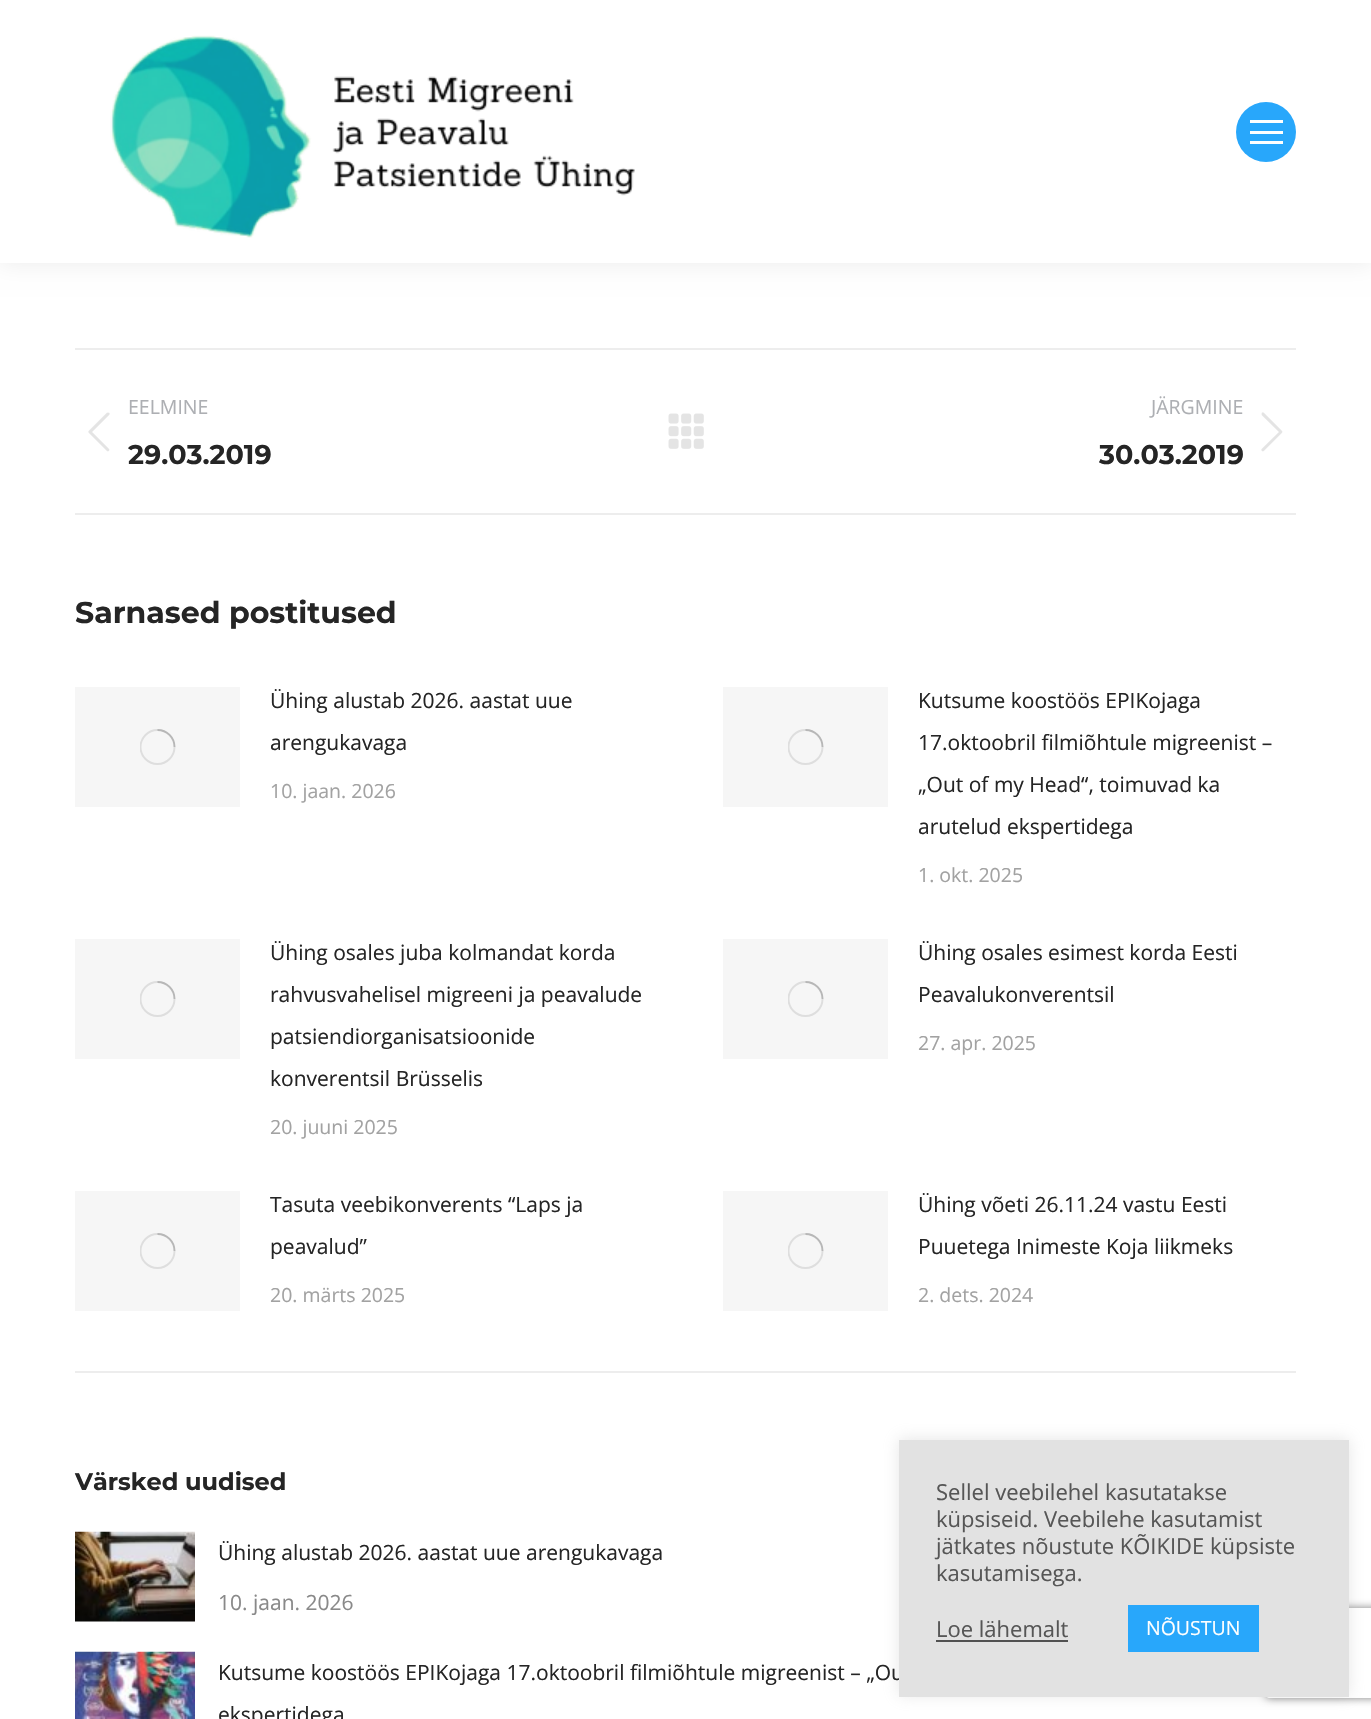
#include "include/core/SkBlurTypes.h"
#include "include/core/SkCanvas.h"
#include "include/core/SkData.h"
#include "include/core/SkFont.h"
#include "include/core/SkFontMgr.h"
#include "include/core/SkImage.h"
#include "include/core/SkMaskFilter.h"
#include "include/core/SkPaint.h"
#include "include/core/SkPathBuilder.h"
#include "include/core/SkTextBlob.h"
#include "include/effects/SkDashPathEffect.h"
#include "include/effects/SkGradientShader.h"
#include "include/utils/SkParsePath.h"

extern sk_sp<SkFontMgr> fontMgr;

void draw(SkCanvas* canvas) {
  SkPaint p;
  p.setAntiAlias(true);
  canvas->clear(SK_ColorWHITE);
  p.setColor(SkColorSetARGB(18, 0, 0, 0));
  p.setMaskFilter(SkMaskFilter::MakeBlur(kNormal_SkBlurStyle, 11));
  canvas->drawRect(SkRect::MakeLTRB(-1, -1, 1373, 264), p);
  p.setMaskFilter(nullptr);
  p.setColor(SK_ColorWHITE);
  canvas->drawRect(SkRect::MakeLTRB(0, 0, 1371, 263), p);
  canvas->drawImageRect(SkImages::DeferredFromEncodedData(SkData::MakeFromFileName("images/1.png")), SkRect::MakeLTRB(110, 35, 635, 238), SkSamplingOptions());
  p.setColor(SkColorSetRGB(40, 167, 251));
  canvas->drawCircle(1266, 132, 30, p);
  p.setColor(SK_ColorWHITE);
  canvas->drawRect(SkRect::MakeLTRB(1250, 120, 1283, 123), p);
  canvas->drawRect(SkRect::MakeLTRB(1250, 131, 1283, 134), p);
  canvas->drawRect(SkRect::MakeLTRB(1250, 141, 1283, 144), p);
  p.setColor(SkColorSetRGB(237, 237, 237));
  canvas->drawRect(SkRect::MakeLTRB(75, 348, 1296, 350), p);
  canvas->drawRect(SkRect::MakeLTRB(75, 513, 1296, 515), p);
  canvas->drawImageRect(SkImages::DeferredFromEncodedData(SkData::MakeFromFileName("images/2.png")), SkRect::MakeLTRB(88, 412, 110, 452), SkSamplingOptions());
  canvas->drawImageRect(SkImages::DeferredFromEncodedData(SkData::MakeFromFileName("images/3.png")), SkRect::MakeLTRB(668, 413, 704, 449), SkSamplingOptions());
  canvas->drawImageRect(SkImages::DeferredFromEncodedData(SkData::MakeFromFileName("images/4.png")), SkRect::MakeLTRB(1261, 412, 1283, 452), SkSamplingOptions());
  canvas->drawRect(SkRect::MakeLTRB(75, 1371, 1296, 1373), p);
  p.setColor(SkColorSetRGB(246, 246, 246));
  canvas->drawRect(SkRect::MakeLTRB(75, 687, 240, 807), p);
  canvas->save();
  canvas->clipRect(SkRect::MakeLTRB(140, 729, 176, 765));
  p.setStyle(SkPaint::kStroke_Style);
  p.setStrokeWidth(1.9f);
  p.setColor(SkColorSetRGB(222, 222, 222));
  canvas->drawCircle(157.5f, 747, 17, p);
  canvas->restore();
  p.setColor(SkColorSetARGB(64, 68, 68, 68));
  canvas->drawPath(SkPathBuilder().moveTo(174.5f, 747).cubicTo(174.5f, 737.5f, 167, 730, 157.5f, 730).detach(), p);
  p.setStyle(SkPaint::kFill_Style);
  p.setColor(SkColorSetRGB(246, 246, 246));
  canvas->drawRect(SkRect::MakeLTRB(723, 687, 888, 807), p);
  canvas->save();
  canvas->clipRect(SkRect::MakeLTRB(788, 729, 824, 765));
  p.setStyle(SkPaint::kStroke_Style);
  p.setColor(SkColorSetRGB(222, 222, 222));
  canvas->drawCircle(805.5f, 747, 17, p);
  canvas->restore();
  p.setColor(SkColorSetARGB(64, 68, 68, 68));
  canvas->drawPath(SkPathBuilder().moveTo(822.5f, 747).cubicTo(822.5f, 737.5f, 815, 730, 805.5f, 730).detach(), p);
  p.setStyle(SkPaint::kFill_Style);
  p.setColor(SkColorSetRGB(246, 246, 246));
  canvas->drawRect(SkRect::MakeLTRB(75, 939, 240, 1059), p);
  canvas->save();
  canvas->clipRect(SkRect::MakeLTRB(140, 981, 176, 1017));
  p.setStyle(SkPaint::kStroke_Style);
  p.setColor(SkColorSetRGB(222, 222, 222));
  canvas->drawCircle(157.5f, 999, 17, p);
  canvas->restore();
  p.setColor(SkColorSetARGB(64, 68, 68, 68));
  canvas->drawPath(SkPathBuilder().moveTo(174.5f, 999).cubicTo(174.5f, 989.5f, 167, 982, 157.5f, 982).detach(), p);
  p.setStyle(SkPaint::kFill_Style);
  p.setColor(SkColorSetRGB(246, 246, 246));
  canvas->drawRect(SkRect::MakeLTRB(723, 939, 888, 1059), p);
  canvas->save();
  canvas->clipRect(SkRect::MakeLTRB(788, 981, 824, 1017));
  p.setStyle(SkPaint::kStroke_Style);
  p.setColor(SkColorSetRGB(222, 222, 222));
  canvas->drawCircle(805.5f, 999, 17, p);
  canvas->restore();
  p.setColor(SkColorSetARGB(64, 68, 68, 68));
  canvas->drawPath(SkPathBuilder().moveTo(822.5f, 999).cubicTo(822.5f, 989.5f, 815, 982, 805.5f, 982).detach(), p);
  p.setStyle(SkPaint::kFill_Style);
  p.setColor(SkColorSetRGB(246, 246, 246));
  canvas->drawRect(SkRect::MakeLTRB(75, 1191, 240, 1311), p);
  canvas->save();
  canvas->clipRect(SkRect::MakeLTRB(140, 1233, 176, 1269));
  p.setStyle(SkPaint::kStroke_Style);
  p.setColor(SkColorSetRGB(222, 222, 222));
  canvas->drawCircle(157.5f, 1251, 17, p);
  canvas->restore();
  p.setColor(SkColorSetARGB(64, 68, 68, 68));
  canvas->drawPath(SkPathBuilder().moveTo(174.5f, 1251).cubicTo(174.5f, 1241.5f, 167, 1234, 157.5f, 1234).detach(), p);
  p.setStyle(SkPaint::kFill_Style);
  p.setColor(SkColorSetRGB(246, 246, 246));
  canvas->drawRect(SkRect::MakeLTRB(723, 1191, 888, 1311), p);
  canvas->save();
  canvas->clipRect(SkRect::MakeLTRB(788, 1233, 824, 1269));
  p.setStyle(SkPaint::kStroke_Style);
  p.setColor(SkColorSetRGB(222, 222, 222));
  canvas->drawCircle(805.5f, 1251, 17, p);
  canvas->restore();
  p.setColor(SkColorSetARGB(64, 68, 68, 68));
  canvas->drawPath(SkPathBuilder().moveTo(822.5f, 1251).cubicTo(822.5f, 1241.5f, 815, 1234, 805.5f, 1234).detach(), p);
  canvas->drawImageRect(SkImages::DeferredFromEncodedData(SkData::MakeFromFileName("images/5.png")), SkRect::MakeLTRB(75, 1531, 195, 1622), SkSamplingOptions());
  canvas->drawImageRect(SkImages::DeferredFromEncodedData(SkData::MakeFromFileName("images/6.png")), SkRect::MakeLTRB(75, 1651, 195, 1719), SkSamplingOptions());
  p.setStyle(SkPaint::kFill_Style);
  p.setColor(SkColorSetARGB(77, 172, 171, 171));
  p.setMaskFilter(SkMaskFilter::MakeBlur(kNormal_SkBlurStyle, 7.5f));
  canvas->drawRect(SkRect::MakeLTRB(899, 1439, 1349, 1695), p);
  p.setMaskFilter(nullptr);
  canvas->save();
  canvas->clipPath(SkPathBuilder(SkPathFillType::kEvenOdd).moveTo(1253, 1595).lineTo(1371, 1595).lineTo(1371, 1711).lineTo(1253, 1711).close().moveTo(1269, 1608).lineTo(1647, 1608).cubicTo(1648.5f, 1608, 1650, 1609.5f, 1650, 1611).lineTo(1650, 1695).cubicTo(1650, 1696.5f, 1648.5f, 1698, 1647, 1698).lineTo(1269, 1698).cubicTo(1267.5f, 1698, 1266, 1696.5f, 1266, 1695).lineTo(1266, 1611).cubicTo(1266, 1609.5f, 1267.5f, 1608, 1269, 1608).close().detach(), true);
  p.setColor(SkColorSetRGB(128, 128, 128));
  p.setMaskFilter(SkMaskFilter::MakeBlur(kNormal_SkBlurStyle, 4));
  canvas->drawRoundRect(SkRect::MakeLTRB(1266, 1608, 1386, 1698), 3, 3, p);
  p.setMaskFilter(nullptr);
  canvas->restore();
  SkFont font1(fontMgr->matchFamilyStyle("Open Sans", SkFontStyle::Normal()), 19.5f);
  font1.setSubpixel(true);
  p.setColor(SkColorSetRGB(173, 175, 179));
  canvas->drawString("EELMINE", 128, 414, font1, p);
  SkFont font2(fontMgr->matchFamilyStyle("Montserrat", SkFontStyle::Bold()), 27);
  font2.setSubpixel(true);
  p.setColor(SkColorSetRGB(37, 37, 37));
  canvas->drawString("29.03.2019", 128, 464, font2, p);
  p.setColor(SkColorSetRGB(173, 175, 179));
  canvas->drawString("JÄRGMINE", 1151, 414, font1, p);
  p.setColor(SkColorSetRGB(37, 37, 37));
  canvas->drawString("30.03.2019", 1099, 464, font2, p);
  SkFont font3(fontMgr->matchFamilyStyle("Montserrat", SkFontStyle::Bold()), 30);
  font3.setSubpixel(true);
  canvas->drawString("Sarnased postitused", 75, 623, font3, p);
  SkFont font4(fontMgr->matchFamilyStyle("Open Sans", SkFontStyle::Normal()), 21);
  font4.setSubpixel(true);
  canvas->drawString("Ühing alustab 2026. aastat uue", 270, 708, font4, p);
  canvas->drawString("arengukavaga", 270, 750, font4, p);
  p.setColor(SkColorSetRGB(162, 162, 162));
  canvas->drawString("10. jaan. 2026", 270, 798, font1, p);
  p.setColor(SkColorSetRGB(37, 37, 37));
  canvas->drawString("Kutsume koostöös EPIKojaga", 918, 708, font4, p);
  canvas->drawString("17.oktoobril filmiõhtule migreenist –", 918, 750, font4, p);
  canvas->drawString("„Out of my Head“, toimuvad ka", 918, 792, font4, p);
  canvas->drawString("arutelud ekspertidega", 918, 834, font4, p);
  p.setColor(SkColorSetRGB(162, 162, 162));
  canvas->drawString("1. okt. 2025", 918, 882, font1, p);
  p.setColor(SkColorSetRGB(37, 37, 37));
  canvas->drawString("Ühing osales juba kolmandat korda", 270, 960, font4, p);
  canvas->drawString("rahvusvahelisel migreeni ja peavalude", 270, 1002, font4, p);
  canvas->drawString("patsiendiorganisatsioonide", 270, 1044, font4, p);
  canvas->drawString("konverentsil Brüsselis", 270, 1086, font4, p);
  p.setColor(SkColorSetRGB(162, 162, 162));
  canvas->drawString("20. juuni 2025", 270, 1134, font1, p);
  p.setColor(SkColorSetRGB(37, 37, 37));
  canvas->drawString("Ühing osales esimest korda Eesti", 918, 960, font4, p);
  canvas->drawString("Peavalukonverentsil", 918, 1002, font4, p);
  p.setColor(SkColorSetRGB(162, 162, 162));
  canvas->drawString("27. apr. 2025", 918, 1050, font1, p);
  p.setColor(SkColorSetRGB(37, 37, 37));
  canvas->drawString("Tasuta veebikonverents “Laps ja", 270, 1212, font4, p);
  canvas->drawString("peavalud”", 270, 1254, font4, p);
  p.setColor(SkColorSetRGB(162, 162, 162));
  canvas->drawString("20. märts 2025", 270, 1302, font1, p);
  p.setColor(SkColorSetRGB(37, 37, 37));
  canvas->drawString("Ühing võeti 26.11.24 vastu Eesti", 918, 1212, font4, p);
  canvas->drawString("Puuetega Inimeste Koja liikmeks", 918, 1254, font4, p);
  p.setColor(SkColorSetRGB(162, 162, 162));
  canvas->drawString("2. dets. 2024", 918, 1302, font1, p);
  SkFont font5(fontMgr->matchFamilyStyle("Montserrat", SkFontStyle::Bold()), 24);
  font5.setSubpixel(true);
  p.setColor(SkColorSetRGB(37, 37, 37));
  canvas->drawString("Värsked uudised", 75, 1490, font5, p);
  canvas->drawString("Ühing alustab 2026. aastat uue arengukavaga", 218, 1560, font4, p);
  p.setColor(SkColorSetRGB(137, 137, 137));
  canvas->drawString("10. jaan. 2026", 218, 1610, font4, p);
  p.setColor(SkColorSetRGB(37, 37, 37));
  canvas->drawString("Kutsume koostöös EPIKojaga 17.oktoobril filmiõhtule migreenist – „Ou", 218, 1680, font4, p);
  canvas->drawString("ekspertidega", 218, 1722, font4, p);
  p.setColor(SkColorSetRGB(226, 226, 226));
  canvas->drawRect(SkRect::MakeLTRB(899, 1440, 1349, 1697), p);
  SkFont font6(fontMgr->matchFamilyStyle("Open Sans", SkFontStyle::Normal()), 22);
  font6.setSubpixel(true);
  p.setColor(SkColorSetRGB(86, 86, 86));
  canvas->drawString("Sellel veebilehel kasutatakse", 936, 1500, font6, p);
  canvas->drawString("küpsiseid. Veebilehe kasutamist", 936, 1527, font6, p);
  canvas->drawString("jätkates nõustute KÕIKIDE küpsiste", 936, 1554, font6, p);
  canvas->drawString("kasutamisega.", 936, 1581, font6, p);
  canvas->drawString("Loe lähemalt", 936, 1637, font6, p);
  p.setColor(SkColorSetRGB(81, 81, 81));
  canvas->drawRect(SkRect::MakeLTRB(936, 1640, 1068, 1642), p);
  p.setColor(SkColorSetRGB(40, 167, 251));
  canvas->drawRect(SkRect::MakeLTRB(1128, 1605, 1259, 1652), p);
  p.setColor(SK_ColorWHITE);
  canvas->drawString("NÕUSTUN", 1146, 1635, font1, p);
}
